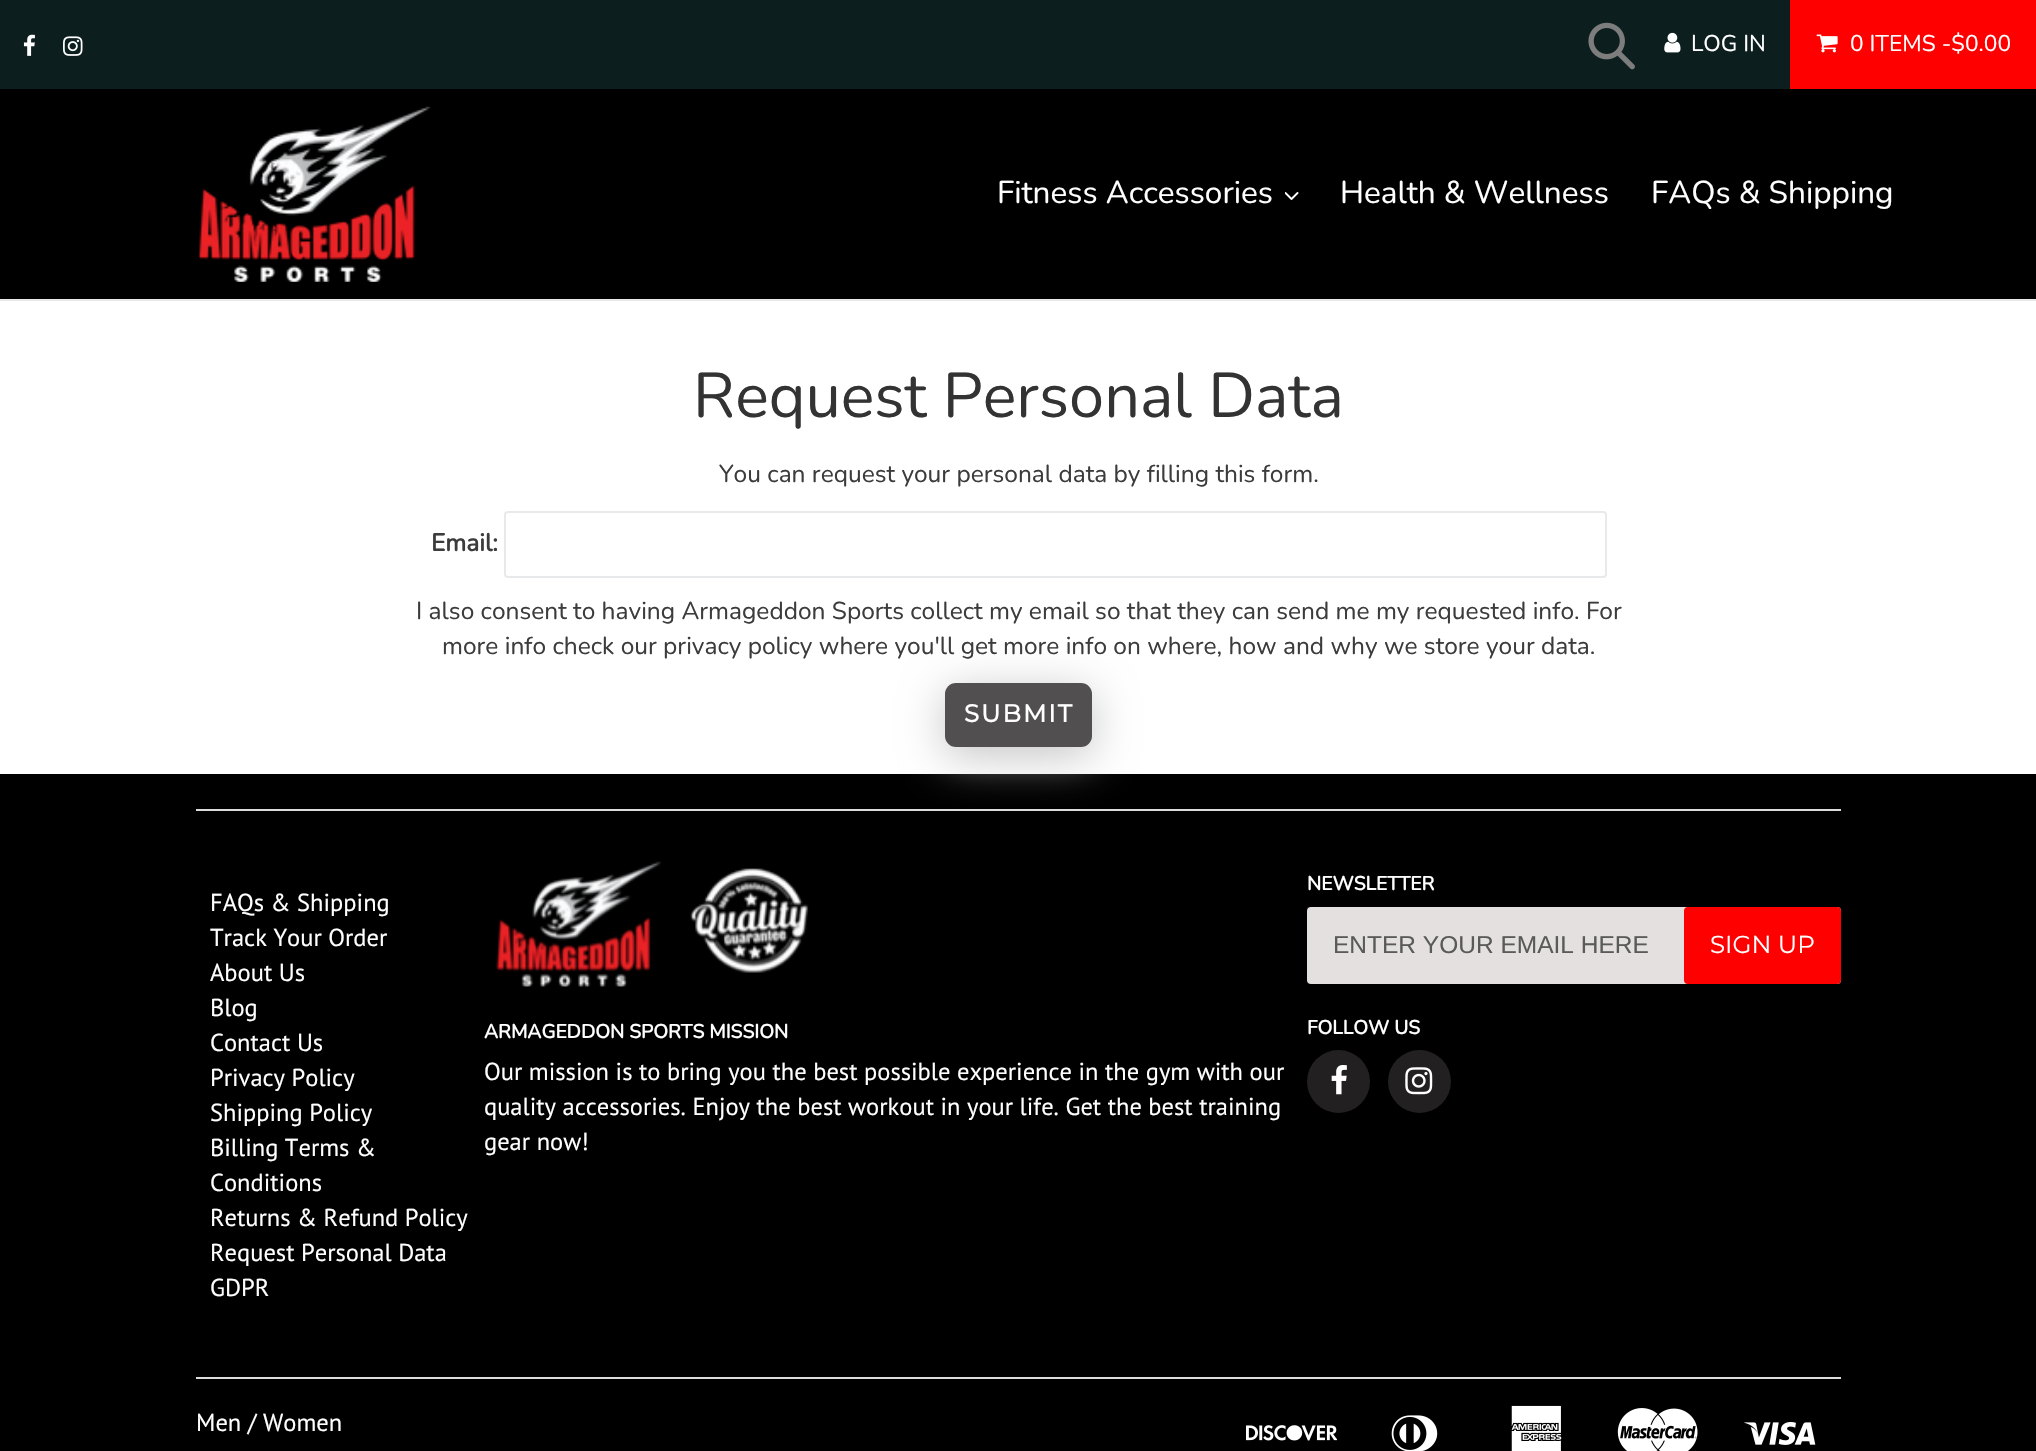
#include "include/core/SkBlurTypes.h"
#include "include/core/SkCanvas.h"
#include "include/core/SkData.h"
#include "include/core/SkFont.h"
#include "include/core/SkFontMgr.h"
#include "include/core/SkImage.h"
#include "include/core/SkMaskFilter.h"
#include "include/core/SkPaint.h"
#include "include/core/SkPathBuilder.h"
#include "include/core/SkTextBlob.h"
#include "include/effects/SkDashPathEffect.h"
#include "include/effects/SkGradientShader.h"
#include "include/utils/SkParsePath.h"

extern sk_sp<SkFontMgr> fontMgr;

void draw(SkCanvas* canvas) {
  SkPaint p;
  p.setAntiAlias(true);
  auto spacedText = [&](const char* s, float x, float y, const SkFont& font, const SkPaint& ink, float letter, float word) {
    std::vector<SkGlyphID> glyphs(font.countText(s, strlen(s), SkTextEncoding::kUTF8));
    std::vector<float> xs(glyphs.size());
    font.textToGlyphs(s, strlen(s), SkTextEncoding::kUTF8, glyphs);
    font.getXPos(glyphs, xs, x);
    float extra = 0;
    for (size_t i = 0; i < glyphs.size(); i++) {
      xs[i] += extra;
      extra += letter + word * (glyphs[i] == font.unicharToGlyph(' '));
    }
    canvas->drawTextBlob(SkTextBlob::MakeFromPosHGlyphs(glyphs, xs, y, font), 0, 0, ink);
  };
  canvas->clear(SK_ColorWHITE);
  p.setColor(SkColorSetRGB(13, 30, 30));
  canvas->drawRect(SkRect::MakeLTRB(0, 0, 1790, 89), p);
  canvas->drawImageRect(SkImages::DeferredFromEncodedData(SkData::MakeFromFileName("images/1.png")), SkRect::MakeLTRB(23, 34, 35, 56), SkSamplingOptions());
  canvas->drawImageRect(SkImages::DeferredFromEncodedData(SkData::MakeFromFileName("images/2.png")), SkRect::MakeLTRB(63, 36, 83, 56), SkSamplingOptions());
  canvas->drawImageRect(SkImages::DeferredFromEncodedData(SkData::MakeFromFileName("images/3.png")), SkRect::MakeLTRB(1588, 22, 1635, 70), SkSamplingOptions());
  canvas->drawImageRect(SkImages::DeferredFromEncodedData(SkData::MakeFromFileName("images/4.png")), SkRect::MakeLTRB(1664, 32, 1681, 53), SkSamplingOptions());
  p.setColor(SkColorSetRGB(255, 0, 0));
  canvas->drawRect(SkRect::MakeLTRB(1790, 0, 2036, 89), p);
  canvas->drawImageRect(SkImages::DeferredFromEncodedData(SkData::MakeFromFileName("images/5.png")), SkRect::MakeLTRB(1816, 34, 1838, 53), SkSamplingOptions());
  p.setColor(SK_ColorBLACK);
  canvas->drawRect(SkRect::MakeLTRB(0, 89, 2036, 299), p);
  p.setColor(SkColorSetRGB(232, 233, 235));
  canvas->drawRect(SkRect::MakeLTRB(0, 299, 2036, 301), p);
  canvas->drawImageRect(SkImages::DeferredFromEncodedData(SkData::MakeFromFileName("images/6.png")), SkRect::MakeLTRB(198, 106, 431, 282), SkSamplingOptions());
  canvas->drawImageRect(SkImages::DeferredFromEncodedData(SkData::MakeFromFileName("images/7.png")), SkRect::MakeLTRB(1285, 192, 1299, 200), SkSamplingOptions());
  p.setStyle(SkPaint::kStroke_Style);
  p.setStrokeWidth(2);
  canvas->drawRoundRect(SkRect::MakeLTRB(505, 512, 1606, 577), 3, 3, p);
  p.setStyle(SkPaint::kFill_Style);
  p.setColor(SK_ColorBLACK);
  canvas->drawRect(SkRect::MakeLTRB(0, 774, 2036, 1451), p);
  p.setColor(SkColorSetRGB(220, 220, 220));
  canvas->drawRect(SkRect::MakeLTRB(196, 809, 1841, 811), p);
  p.setColor(SkColorSetRGB(197, 197, 197));
  p.setMaskFilter(SkMaskFilter::MakeBlur(kNormal_SkBlurStyle, 22));
  canvas->drawRoundRect(SkRect::MakeLTRB(945, 691, 1092, 756), 11, 11, p);
  p.setMaskFilter(nullptr);
  p.setColor(SkColorSetRGB(81, 79, 79));
  canvas->drawRoundRect(SkRect::MakeLTRB(945, 683, 1092, 747), 11, 11, p);
  p.setColor(SkColorSetRGB(220, 220, 220));
  canvas->drawRect(SkRect::MakeLTRB(196, 1377, 1841, 1379), p);
  canvas->drawImageRect(SkImages::DeferredFromEncodedData(SkData::MakeFromFileName("images/8.png")), SkRect::MakeLTRB(496, 861, 809, 987), SkSamplingOptions());
  p.setColor(SkColorSetRGB(228, 224, 224));
  canvas->drawRoundRect(SkRect::MakeLTRB(1307, 907, 1841, 984), 4, 4, p);
  p.setColor(SkColorSetRGB(255, 0, 0));
  canvas->drawRoundRect(SkRect::MakeLTRB(1684, 907, 1841, 984), 4, 4, p);
  p.setColor(SkColorSetRGB(34, 32, 32));
  canvas->drawCircle(1338.5f, 1081.5f, 31.5f, p);
  canvas->drawImageRect(SkImages::DeferredFromEncodedData(SkData::MakeFromFileName("images/9.png")), SkRect::MakeLTRB(1331, 1065, 1347, 1095), SkSamplingOptions());
  canvas->drawCircle(1419.5f, 1081.5f, 31.5f, p);
  canvas->drawImageRect(SkImages::DeferredFromEncodedData(SkData::MakeFromFileName("images/10.png")), SkRect::MakeLTRB(1405, 1067, 1433, 1095), SkSamplingOptions());
  canvas->drawImageRect(SkImages::DeferredFromEncodedData(SkData::MakeFromFileName("images/11.png")), SkRect::MakeLTRB(1246, 1425, 1337, 1441), SkSamplingOptions());
  canvas->drawImageRect(SkImages::DeferredFromEncodedData(SkData::MakeFromFileName("images/12.png")), SkRect::MakeLTRB(1391, 1415, 1438, 1451), SkSamplingOptions());
  canvas->drawImageRect(SkImages::DeferredFromEncodedData(SkData::MakeFromFileName("images/13.png")), SkRect::MakeLTRB(1511, 1405, 1562, 1451), SkSamplingOptions());
  canvas->drawImageRect(SkImages::DeferredFromEncodedData(SkData::MakeFromFileName("images/14.png")), SkRect::MakeLTRB(1617, 1408, 1698, 1451), SkSamplingOptions());
  canvas->drawImageRect(SkImages::DeferredFromEncodedData(SkData::MakeFromFileName("images/15.png")), SkRect::MakeLTRB(1744, 1422, 1816, 1445), SkSamplingOptions());
  SkFont font1(fontMgr->matchFamilyStyle("Nunito", SkFontStyle(200, SkFontStyle::kNormal_Width, SkFontStyle::kUpright_Slant)), 22.75f);
  font1.setSubpixel(true);
  p.setColor(SK_ColorWHITE);
  canvas->drawString("LOG IN", 1691, 51, font1, p);
  canvas->drawString("0 ITEMS -$0.00", 1850, 51, font1, p);
  SkFont font2(fontMgr->matchFamilyStyle("Nunito", SkFontStyle(200, SkFontStyle::kNormal_Width, SkFontStyle::kUpright_Slant)), 31.5f);
  font2.setSubpixel(true);
  canvas->drawString("Fitness Accessories", 997, 203, font2, p);
  canvas->drawString("Health & Wellness", 1340, 203, font2, p);
  canvas->drawString("FAQs & Shipping", 1651, 203, font2, p);
  SkFont font3(fontMgr->matchFamilyStyle("Nunito", SkFontStyle(200, SkFontStyle::kNormal_Width, SkFontStyle::kUpright_Slant)), 63);
  font3.setSubpixel(true);
  p.setColor(SkColorSetRGB(51, 51, 51));
  canvas->drawString("Request Personal Data", 693, 417, font3, p);
  SkFont font4(fontMgr->matchFamilyStyle("Nunito", SkFontStyle(200, SkFontStyle::kNormal_Width, SkFontStyle::kUpright_Slant)), 24.5f);
  font4.setSubpixel(true);
  p.setColor(SkColorSetRGB(60, 60, 60));
  canvas->drawString("You can request your personal data by filling this form.", 719, 482, font4, p);
  SkFont font5(fontMgr->matchFamilyStyle("Nunito", SkFontStyle::Bold()), 24.5f);
  font5.setSubpixel(true);
  canvas->drawString("Email:", 431, 551, font5, p);
  canvas->drawString("I also consent to having Armageddon Sports collect my email so that they can send me my requested info. For", 416, 619, font4, p);
  canvas->drawString("more info check our privacy policy where you'll get more info on where, how and why we store your data.", 442, 654, font4, p);
  SkFont font6(fontMgr->matchFamilyStyle("Montserrat", SkFontStyle::Bold()), 24.5f);
  font6.setSubpixel(true);
  p.setColor(SK_ColorWHITE);
  spacedText("SUBMIT", 964, 722, font6, p, 2, 0);
  SkFont font7(fontMgr->matchFamilyStyle("PT Sans", SkFontStyle::Normal()), 24.5f);
  font7.setSubpixel(true);
  canvas->drawString("FAQs & Shipping", 210, 911, font7, p);
  canvas->drawString("Track Your Order", 210, 946, font7, p);
  canvas->drawString("About Us", 210, 981, font7, p);
  canvas->drawString("Blog", 210, 1016, font7, p);
  canvas->drawString("Contact Us", 210, 1051, font7, p);
  canvas->drawString("Privacy Policy", 210, 1086, font7, p);
  canvas->drawString("Shipping Policy", 210, 1121, font7, p);
  canvas->drawString("Billing Terms &", 210, 1156, font7, p);
  canvas->drawString("Conditions", 210, 1191, font7, p);
  canvas->drawString("Returns & Refund Policy", 210, 1226, font7, p);
  canvas->drawString("Request Personal Data", 210, 1261, font7, p);
  canvas->drawString("GDPR", 210, 1296, font7, p);
  SkFont font8(fontMgr->matchFamilyStyle("Nunito", SkFontStyle::Bold()), 19.25f);
  font8.setSubpixel(true);
  canvas->drawString("ARMAGEDDON SPORTS MISSION", 484, 1038, font8, p);
  canvas->drawString("Our mission is to bring you the best possible experience in the gym with our", 484, 1080, font7, p);
  canvas->drawString("quality accessories. Enjoy the best workout in your life. Get the best training", 484, 1115, font7, p);
  canvas->drawString("gear now!", 484, 1150, font7, p);
  canvas->drawString("NEWSLETTER", 1307, 890, font8, p);
  SkFont font9(fontMgr->matchFamilyStyle("Liberation Sans", SkFontStyle::Normal()), 24.5f);
  font9.setSubpixel(true);
  p.setColor(SkColorSetRGB(91, 90, 90));
  canvas->drawString("ENTER YOUR EMAIL HERE", 1333, 953, font9, p);
  SkFont font10(fontMgr->matchFamilyStyle("Montserrat", SkFontStyle(100, SkFontStyle::kNormal_Width, SkFontStyle::kUpright_Slant)), 24.5f);
  font10.setSubpixel(true);
  p.setColor(SK_ColorWHITE);
  canvas->drawString("SIGN UP", 1710, 953, font10, p);
  canvas->drawString("FOLLOW US", 1307, 1034, font8, p);
  canvas->drawString("Men / Women", 196, 1431, font7, p);
}
